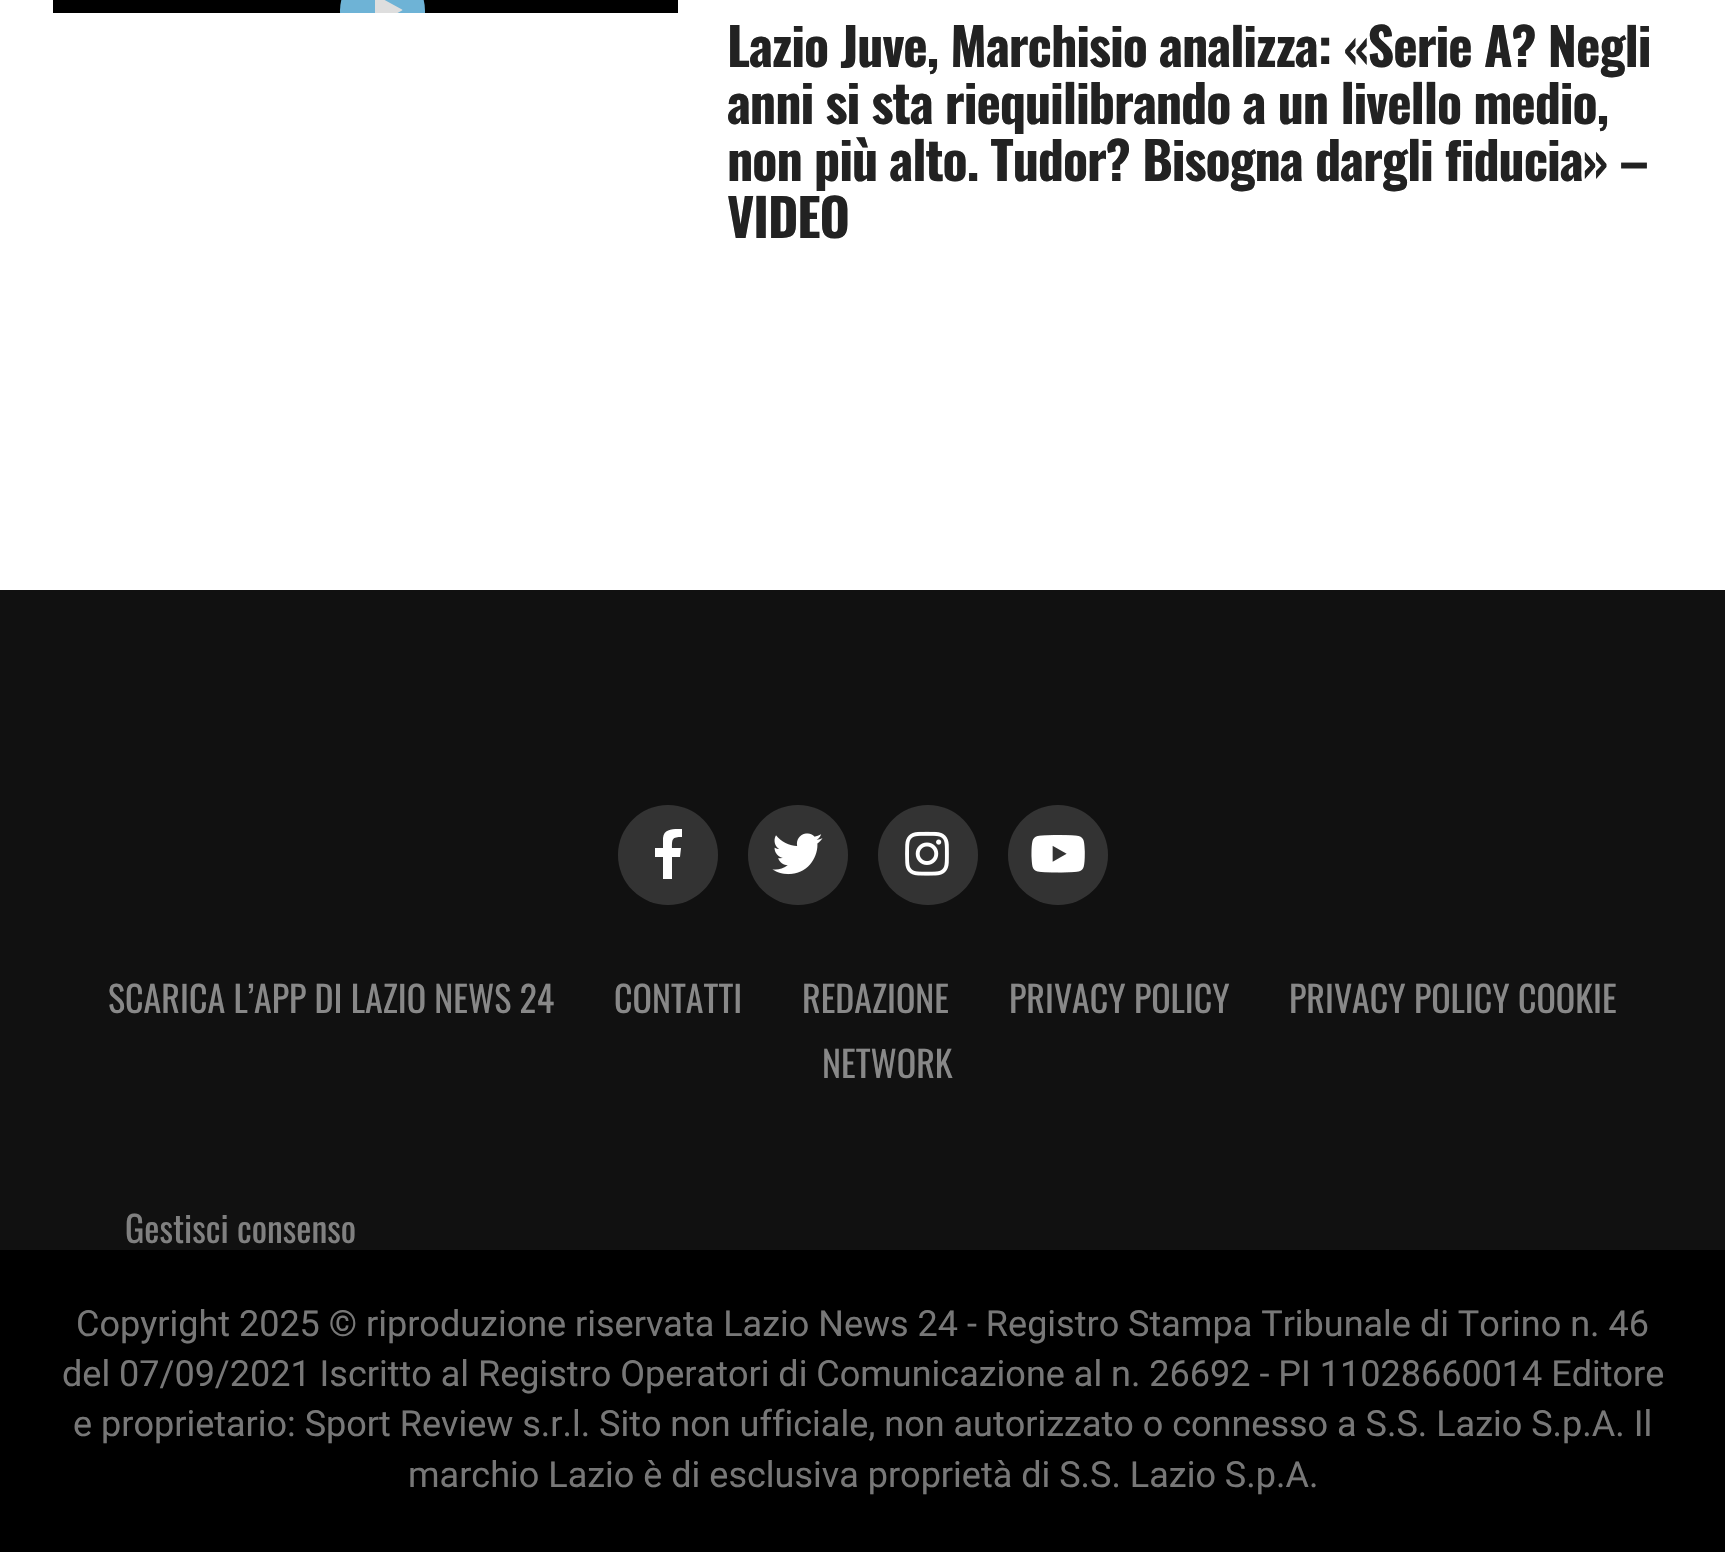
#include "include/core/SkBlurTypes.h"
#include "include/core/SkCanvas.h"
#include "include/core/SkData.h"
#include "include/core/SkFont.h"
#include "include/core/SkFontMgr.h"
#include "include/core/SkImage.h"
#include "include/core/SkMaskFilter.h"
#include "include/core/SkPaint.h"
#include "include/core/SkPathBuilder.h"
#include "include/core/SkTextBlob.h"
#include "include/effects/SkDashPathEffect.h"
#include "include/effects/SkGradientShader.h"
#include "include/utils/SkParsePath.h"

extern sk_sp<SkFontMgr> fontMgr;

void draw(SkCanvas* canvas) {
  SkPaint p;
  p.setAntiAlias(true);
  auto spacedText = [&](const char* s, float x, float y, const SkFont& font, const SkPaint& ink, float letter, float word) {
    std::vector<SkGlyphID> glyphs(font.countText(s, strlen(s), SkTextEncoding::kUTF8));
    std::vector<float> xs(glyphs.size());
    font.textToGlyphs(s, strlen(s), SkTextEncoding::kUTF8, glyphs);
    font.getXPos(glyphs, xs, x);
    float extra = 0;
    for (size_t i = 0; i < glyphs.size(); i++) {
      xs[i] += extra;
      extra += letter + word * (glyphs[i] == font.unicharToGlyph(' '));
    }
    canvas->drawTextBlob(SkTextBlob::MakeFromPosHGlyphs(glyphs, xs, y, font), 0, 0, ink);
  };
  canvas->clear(SK_ColorWHITE);
  p.setColor(SK_ColorBLACK);
  canvas->drawRect(SkRect::MakeLTRB(53, 0, 678, 13), p);
  canvas->save();
  canvas->clipRect(SkRect::MakeLTRB(53, 0, 678, 13));
  p.setColor(SkColorSetRGB(110, 179, 214));
  canvas->drawCircle(382.5f, 10.5f, 42.5f, p);
  p.setColor(SkColorSetRGB(222, 222, 222));
  canvas->drawPath(SkPathBuilder().moveTo(402, 10.5f).lineTo(380.5f, 22.5f).cubicTo(380, 23, 376, 26, 375, 25).lineTo(375, -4.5f).lineTo(375.5f, -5).lineTo(402, 9.5f).lineTo(402.5f, 10).close().detach(), p);
  canvas->restore();
  p.setColor(SkColorSetRGB(17, 17, 17));
  canvas->drawRect(SkRect::MakeLTRB(0, 590, 1725, 1250), p);
  p.setColor(SkColorSetRGB(51, 51, 51));
  canvas->drawCircle(668, 855, 50, p);
  p.setColor(SK_ColorWHITE);
  canvas->drawPath(SkPathBuilder().moveTo(680, 857).lineTo(672, 857).lineTo(672, 879).lineTo(663, 879).lineTo(663, 857).lineTo(655, 857).lineTo(655, 848).lineTo(663, 848).lineTo(663, 838).cubicTo(664, 828, 674, 829, 682, 829).lineTo(682, 837).cubicTo(672, 837, 672, 839, 672, 848).lineTo(681, 848).close().detach(), p);
  p.setColor(SkColorSetRGB(51, 51, 51));
  canvas->drawCircle(798, 855, 50, p);
  canvas->drawImageRect(SkImages::DeferredFromEncodedData(SkData::MakeFromFileName("images/1.png")), SkRect::MakeLTRB(772, 833, 823, 875), SkSamplingOptions());
  canvas->drawCircle(928, 855, 50, p);
  canvas->drawImageRect(SkImages::DeferredFromEncodedData(SkData::MakeFromFileName("images/2.png")), SkRect::MakeLTRB(905, 831, 949, 876), SkSamplingOptions());
  canvas->drawCircle(1058, 855, 50, p);
  canvas->drawImageRect(SkImages::DeferredFromEncodedData(SkData::MakeFromFileName("images/3.png")), SkRect::MakeLTRB(1031, 835, 1085, 873), SkSamplingOptions());
  p.setColor(SK_ColorBLACK);
  canvas->drawRect(SkRect::MakeLTRB(0, 1250, 1725, 1552), p);
  SkFont font1(fontMgr->matchFamilyStyle("Oswald", SkFontStyle::Bold()), 52);
  font1.setSubpixel(true);
  p.setColor(SkColorSetRGB(34, 34, 34));
  spacedText("Lazio Juve, Marchisio analizza: «Serie A? Negli", 727, 67, font1, p, -1.05f, 0);
  spacedText("anni si sta riequilibrando a un livello medio,", 727, 124, font1, p, -1.05f, 0);
  spacedText("non più alto. Tudor? Bisogna dargli fiducia» –", 727, 181, font1, p, -1.05f, 0);
  spacedText("VIDEO", 727, 238, font1, p, -1.05f, 0);
  SkFont font2(fontMgr->matchFamilyStyle("Oswald", SkFontStyle::Normal()), 36);
  font2.setSubpixel(true);
  p.setColor(SkColorSetRGB(136, 136, 136));
  canvas->drawString("SCARICA L’APP DI LAZIO NEWS 24", 108, 1013, font2, p);
  canvas->drawString("CONTATTI", 614, 1013, font2, p);
  canvas->drawString("REDAZIONE", 802, 1013, font2, p);
  canvas->drawString("PRIVACY POLICY", 1009, 1013, font2, p);
  canvas->drawString("PRIVACY POLICY COOKIE", 1289, 1013, font2, p);
  canvas->drawString("NETWORK", 822, 1078, font2, p);
  p.setColor(SkColorSetRGB(128, 128, 128));
  canvas->drawString("Gestisci consenso", 125, 1243, font2, p);
  SkFont font3(fontMgr->matchFamilyStyle("Roboto", SkFontStyle::Normal()), 36);
  font3.setSubpixel(true);
  p.setColor(SkColorSetRGB(119, 119, 119));
  canvas->drawString("Copyright 2025 © riproduzione riservata Lazio News 24 - Registro Stampa Tribunale di Torino n. 46", 76, 1336, font3, p);
  canvas->drawString("del 07/09/2021 Iscritto al Registro Operatori di Comunicazione al n. 26692 - PI 11028660014 Editore", 62, 1386, font3, p);
  canvas->drawString("e proprietario: Sport Review s.r.l.", 73, 1436, font3, p);
  canvas->drawString("Sito non ufficiale, non autorizzato o connesso a S.S. Lazio S.p.A. Il", 599, 1436, font3, p);
  canvas->drawString("marchio Lazio è di esclusiva proprietà di S.S. Lazio S.p.A.", 408, 1487, font3, p);
}
